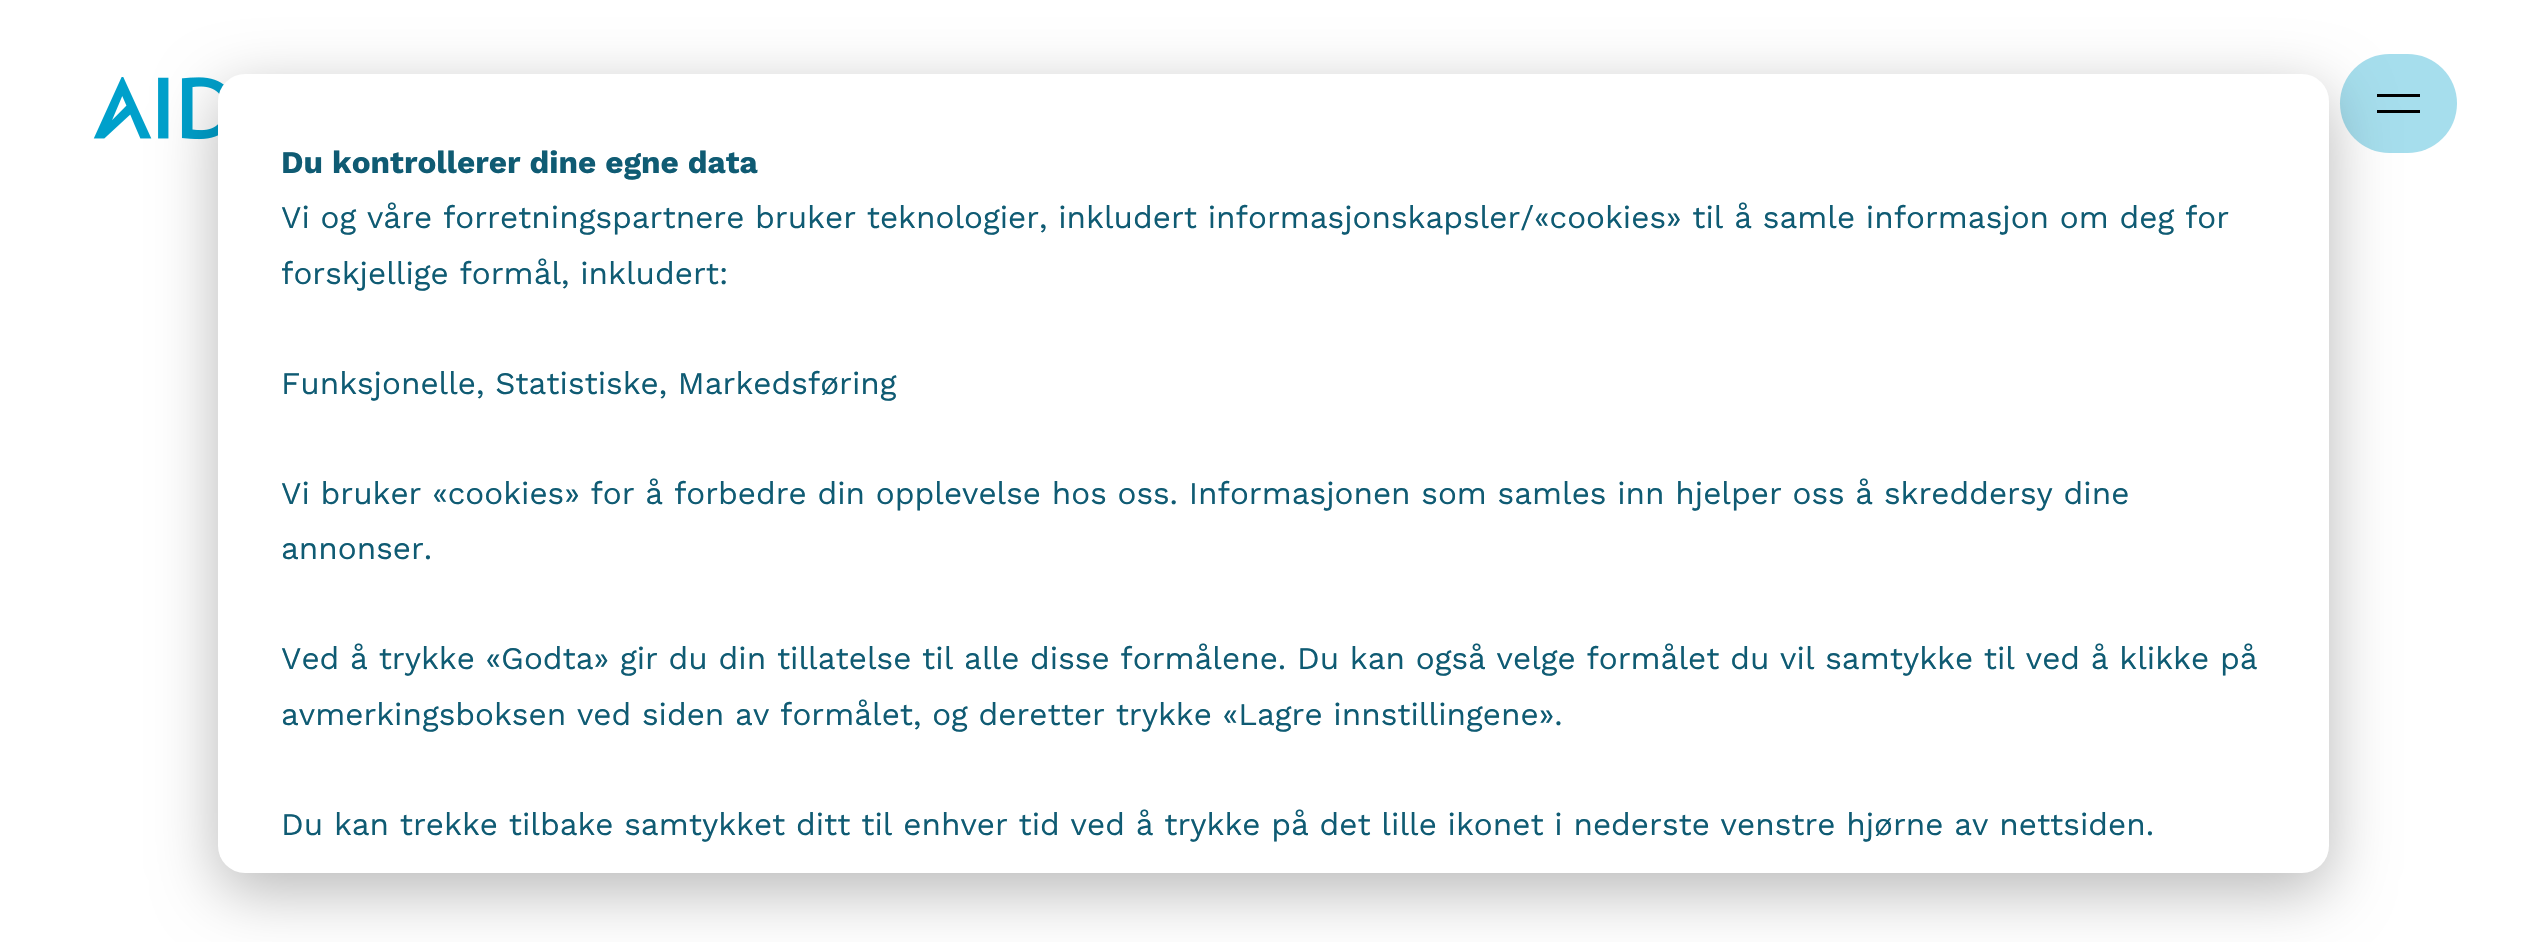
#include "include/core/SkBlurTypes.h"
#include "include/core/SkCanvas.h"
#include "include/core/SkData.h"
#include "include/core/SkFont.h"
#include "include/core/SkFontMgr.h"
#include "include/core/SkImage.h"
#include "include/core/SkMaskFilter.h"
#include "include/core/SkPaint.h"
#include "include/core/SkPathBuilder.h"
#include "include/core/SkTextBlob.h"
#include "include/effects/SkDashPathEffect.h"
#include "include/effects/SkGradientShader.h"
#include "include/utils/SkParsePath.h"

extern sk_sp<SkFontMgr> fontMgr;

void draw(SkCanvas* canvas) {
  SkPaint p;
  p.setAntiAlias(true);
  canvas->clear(SK_ColorWHITE);
  canvas->drawImageRect(SkImages::DeferredFromEncodedData(SkData::MakeFromFileName("images/1.png")), SkRect::MakeLTRB(93, 77, 224, 140), SkSamplingOptions());
  p.setColor(SkColorSetRGB(166, 222, 237));
  canvas->drawRoundRect(SkRect::MakeLTRB(2340, 54, 2457, 153), 49.5f, 49.5f, p);
  p.setColor(SK_ColorBLACK);
  canvas->drawPath(SkPathBuilder(SkPathFillType::kEvenOdd).moveTo(2420, 97).lineTo(2377, 97).lineTo(2377, 94).lineTo(2420, 94).close().moveTo(2420, 113).lineTo(2377, 113).lineTo(2377, 110).lineTo(2420, 110).close().detach(), p);
  p.setColor(SkColorSetARGB(71, 0, 0, 0));
  p.setMaskFilter(SkMaskFilter::MakeBlur(kNormal_SkBlurStyle, 31.5f));
  canvas->drawRoundRect(SkRect::MakeLTRB(218, 92, 2329, 891), 27, 27, p);
  p.setMaskFilter(nullptr);
  p.setColor(SK_ColorWHITE);
  canvas->drawRoundRect(SkRect::MakeLTRB(218, 74, 2329, 873), 27, 27, p);
  SkFont font1(fontMgr->matchFamilyStyle("Work Sans", SkFontStyle::Bold()), 31.5f);
  font1.setSubpixel(true);
  p.setColor(SkColorSetRGB(15, 91, 115));
  canvas->drawString("Du kontrollerer dine egne data", 281, 173, font1, p);
  SkFont font2(fontMgr->matchFamilyStyle("Work Sans", SkFontStyle::Normal()), 31.5f);
  font2.setSubpixel(true);
  canvas->drawString("Vi og våre forretningspartnere bruker teknologier, inkludert informasjonskapsler/«cookies» til å samle informasjon om deg for", 281, 228, font2, p);
  canvas->drawString("forskjellige formål, inkludert:", 281, 284, font2, p);
  canvas->drawString("Funksjonelle, Statistiske, Markedsføring", 281, 394, font2, p);
  canvas->drawString("Vi bruker «cookies» for å forbedre din opplevelse hos oss. Informasjonen som samles inn hjelper oss å skreddersy dine", 281, 504, font2, p);
  canvas->drawString("annonser.", 281, 559, font2, p);
  canvas->drawString("Ved å trykke «Godta» gir du din tillatelse til alle disse formålene. Du kan også velge formålet du vil samtykke til ved å klikke på", 281, 669, font2, p);
  canvas->drawString("avmerkingsboksen ved siden av formålet, og deretter trykke «Lagre innstillingene».", 281, 725, font2, p);
  canvas->drawString("Du kan trekke tilbake samtykket ditt til enhver tid ved å trykke på det lille ikonet i nederste venstre hjørne av nettsiden.", 281, 835, font2, p);
}
